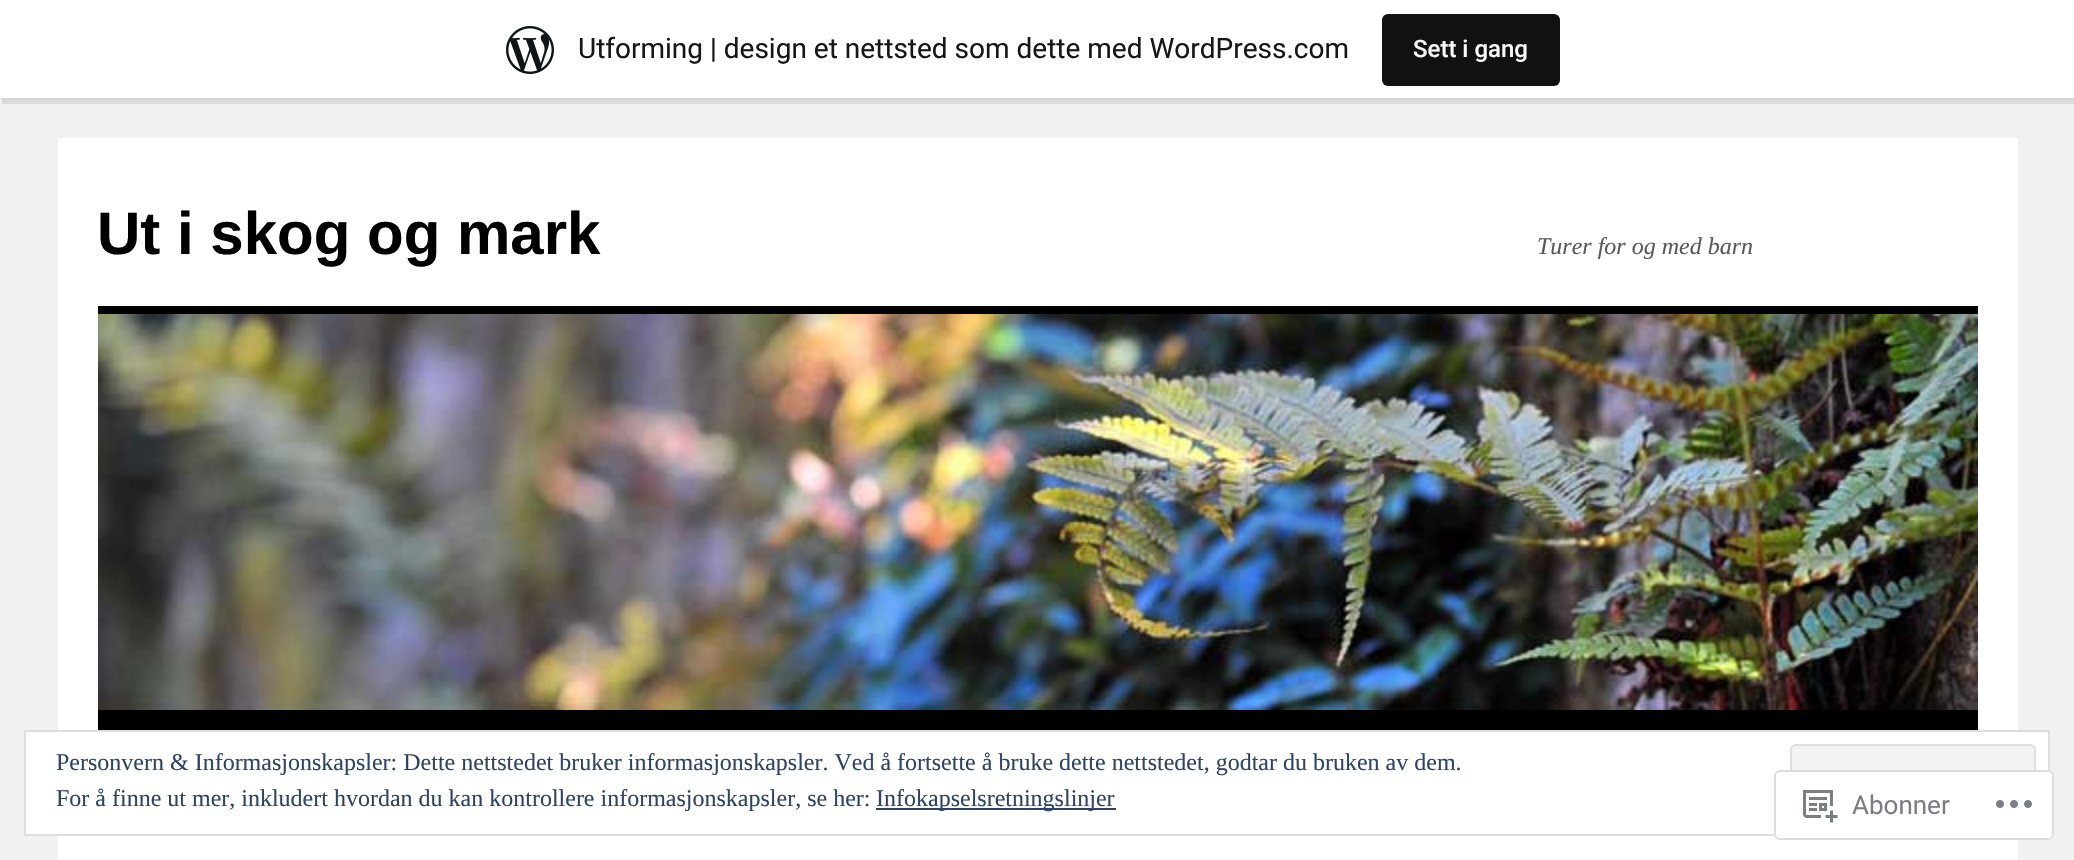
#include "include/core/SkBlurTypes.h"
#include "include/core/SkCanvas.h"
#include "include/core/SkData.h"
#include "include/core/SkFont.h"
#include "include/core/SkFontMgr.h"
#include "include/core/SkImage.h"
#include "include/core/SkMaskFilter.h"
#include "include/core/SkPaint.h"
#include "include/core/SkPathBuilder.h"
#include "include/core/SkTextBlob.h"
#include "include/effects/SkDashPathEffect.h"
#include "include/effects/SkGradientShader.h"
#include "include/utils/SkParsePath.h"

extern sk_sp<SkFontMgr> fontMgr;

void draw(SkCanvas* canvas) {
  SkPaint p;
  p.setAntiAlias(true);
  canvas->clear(SkColorSetRGB(241, 241, 241));
  p.setColor(SkColorSetARGB(13, 0, 0, 0));
  p.setMaskFilter(SkMaskFilter::MakeBlur(kNormal_SkBlurStyle, 2));
  canvas->drawRect(SkRect::MakeLTRB(0, 2, 2074, 100), p);
  p.setMaskFilter(nullptr);
  p.setColor(SkColorSetARGB(20, 0, 0, 0));
  canvas->drawPath(SkPathBuilder().moveTo(2, 98).lineTo(2, 104).lineTo(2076, 104).lineTo(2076, 6).lineTo(2074, 6).lineTo(2074, 98).close().detach(), p);
  p.setColor(SK_ColorWHITE);
  canvas->drawRect(SkRect::MakeLTRB(0, 0, 2074, 98), p);
  canvas->drawImageRect(SkImages::DeferredFromEncodedData(SkData::MakeFromFileName("images/1.png")), SkRect::MakeLTRB(506, 26, 554, 74), SkSamplingOptions());
  p.setColor(SkColorSetRGB(17, 17, 17));
  canvas->drawRoundRect(SkRect::MakeLTRB(1382, 14, 1560, 86), 6, 6, p);
  p.setColor(SK_ColorWHITE);
  canvas->drawRect(SkRect::MakeLTRB(58, 138, 2018, 860), p);
  p.setColor(SK_ColorBLACK);
  canvas->drawRect(SkRect::MakeLTRB(98, 306, 1978, 314), p);
  canvas->drawRect(SkRect::MakeLTRB(98, 710, 1978, 730), p);
  canvas->drawImageRect(SkImages::DeferredFromEncodedData(SkData::MakeFromFileName("images/2.png")), SkRect::MakeLTRB(98, 314, 1978, 710), SkSamplingOptions());
  p.setColor(SK_ColorWHITE);
  canvas->drawRect(SkRect::MakeLTRB(25, 731, 2049, 835), p);
  p.setStyle(SkPaint::kStroke_Style);
  p.setStrokeWidth(2);
  p.setColor(SkColorSetRGB(222, 222, 222));
  canvas->drawRect(SkRect::MakeLTRB(25, 731, 2049, 835), p);
  p.setStyle(SkPaint::kFill_Style);
  p.setColor(SkColorSetRGB(243, 243, 243));
  canvas->drawRoundRect(SkRect::MakeLTRB(1791, 745, 2035, 821), 5, 5, p);
  p.setStyle(SkPaint::kStroke_Style);
  p.setColor(SkColorSetRGB(222, 222, 222));
  canvas->drawRoundRect(SkRect::MakeLTRB(1791, 745, 2035, 821), 5, 5, p);
  p.setStyle(SkPaint::kFill_Style);
  p.setColor(SkColorSetRGB(46, 68, 103));
  canvas->drawRect(SkRect::MakeLTRB(876, 808, 1116, 810), p);
  p.setColor(SkColorSetARGB(250, 255, 255, 255));
  canvas->drawRoundRect(SkRect::MakeLTRB(1774, 770, 2054, 840), 6, 6, p);
  p.setStyle(SkPaint::kStroke_Style);
  p.setColor(SkColorSetARGB(250, 220, 220, 222));
  canvas->drawRoundRect(SkRect::MakeLTRB(1775, 771, 2053, 839), 5, 5, p);
  canvas->drawImageRect(SkImages::DeferredFromEncodedData(SkData::MakeFromFileName("images/3.png")), SkRect::MakeLTRB(1803, 790, 1838, 823), SkSamplingOptions());
  canvas->drawImageRect(SkImages::DeferredFromEncodedData(SkData::MakeFromFileName("images/4.png")), SkRect::MakeLTRB(1996, 800, 2032, 808), SkSamplingOptions());
  SkFont font1(fontMgr->matchFamilyStyle("Roboto", SkFontStyle::Normal()), 28);
  font1.setSubpixel(true);
  p.setStyle(SkPaint::kFill_Style);
  p.setColor(SkColorSetRGB(23, 23, 23));
  canvas->drawString("Utforming | design et nettsted som dette med WordPress.com", 578, 58, font1, p);
  SkFont font2(fontMgr->matchFamilyStyle("Roboto", SkFontStyle(500, SkFontStyle::kNormal_Width, SkFontStyle::kUpright_Slant)), 24);
  font2.setSubpixel(true);
  p.setColor(SkColorSetRGB(246, 247, 247));
  canvas->drawString("Sett i gang", 1413, 57, font2, p);
  SkFont font3(fontMgr->matchFamilyStyle("Liberation Sans", SkFontStyle::Bold()), 60);
  font3.setSubpixel(true);
  p.setColor(SK_ColorBLACK);
  canvas->drawString("Ut i skog og mark", 97, 254, font3, p);
  SkFont font4(fontMgr->matchFamilyStyle("Liberation Serif", SkFontStyle::Italic()), 24);
  font4.setSubpixel(true);
  p.setColor(SkColorSetRGB(89, 89, 89));
  canvas->drawString("Turer for og med barn", 1537, 254, font4, p);
  SkFont font5(fontMgr->matchFamilyStyle("Liberation Serif", SkFontStyle::Normal()), 24);
  font5.setSubpixel(true);
  p.setColor(SkColorSetRGB(46, 68, 103));
  canvas->drawString("Personvern & Informasjonskapsler: Dette nettstedet bruker informasjonskapsler. Ved å fortsette å bruke dette nettstedet, godtar du bruken av dem.", 56, 770, font5, p);
  canvas->drawString("For å finne ut mer, inkludert hvordan du kan kontrollere informasjonskapsler, se her:", 56, 806, font5, p);
  canvas->drawString("Infokapselsretningslinjer", 876, 806, font5, p);
  SkFont font6(fontMgr->matchFamilyStyle("Roboto", SkFontStyle::Normal()), 26);
  font6.setSubpixel(true);
  p.setColor(SkColorSetRGB(122, 126, 132));
  canvas->drawString("Abonner", 1852, 814, font6, p);
}
